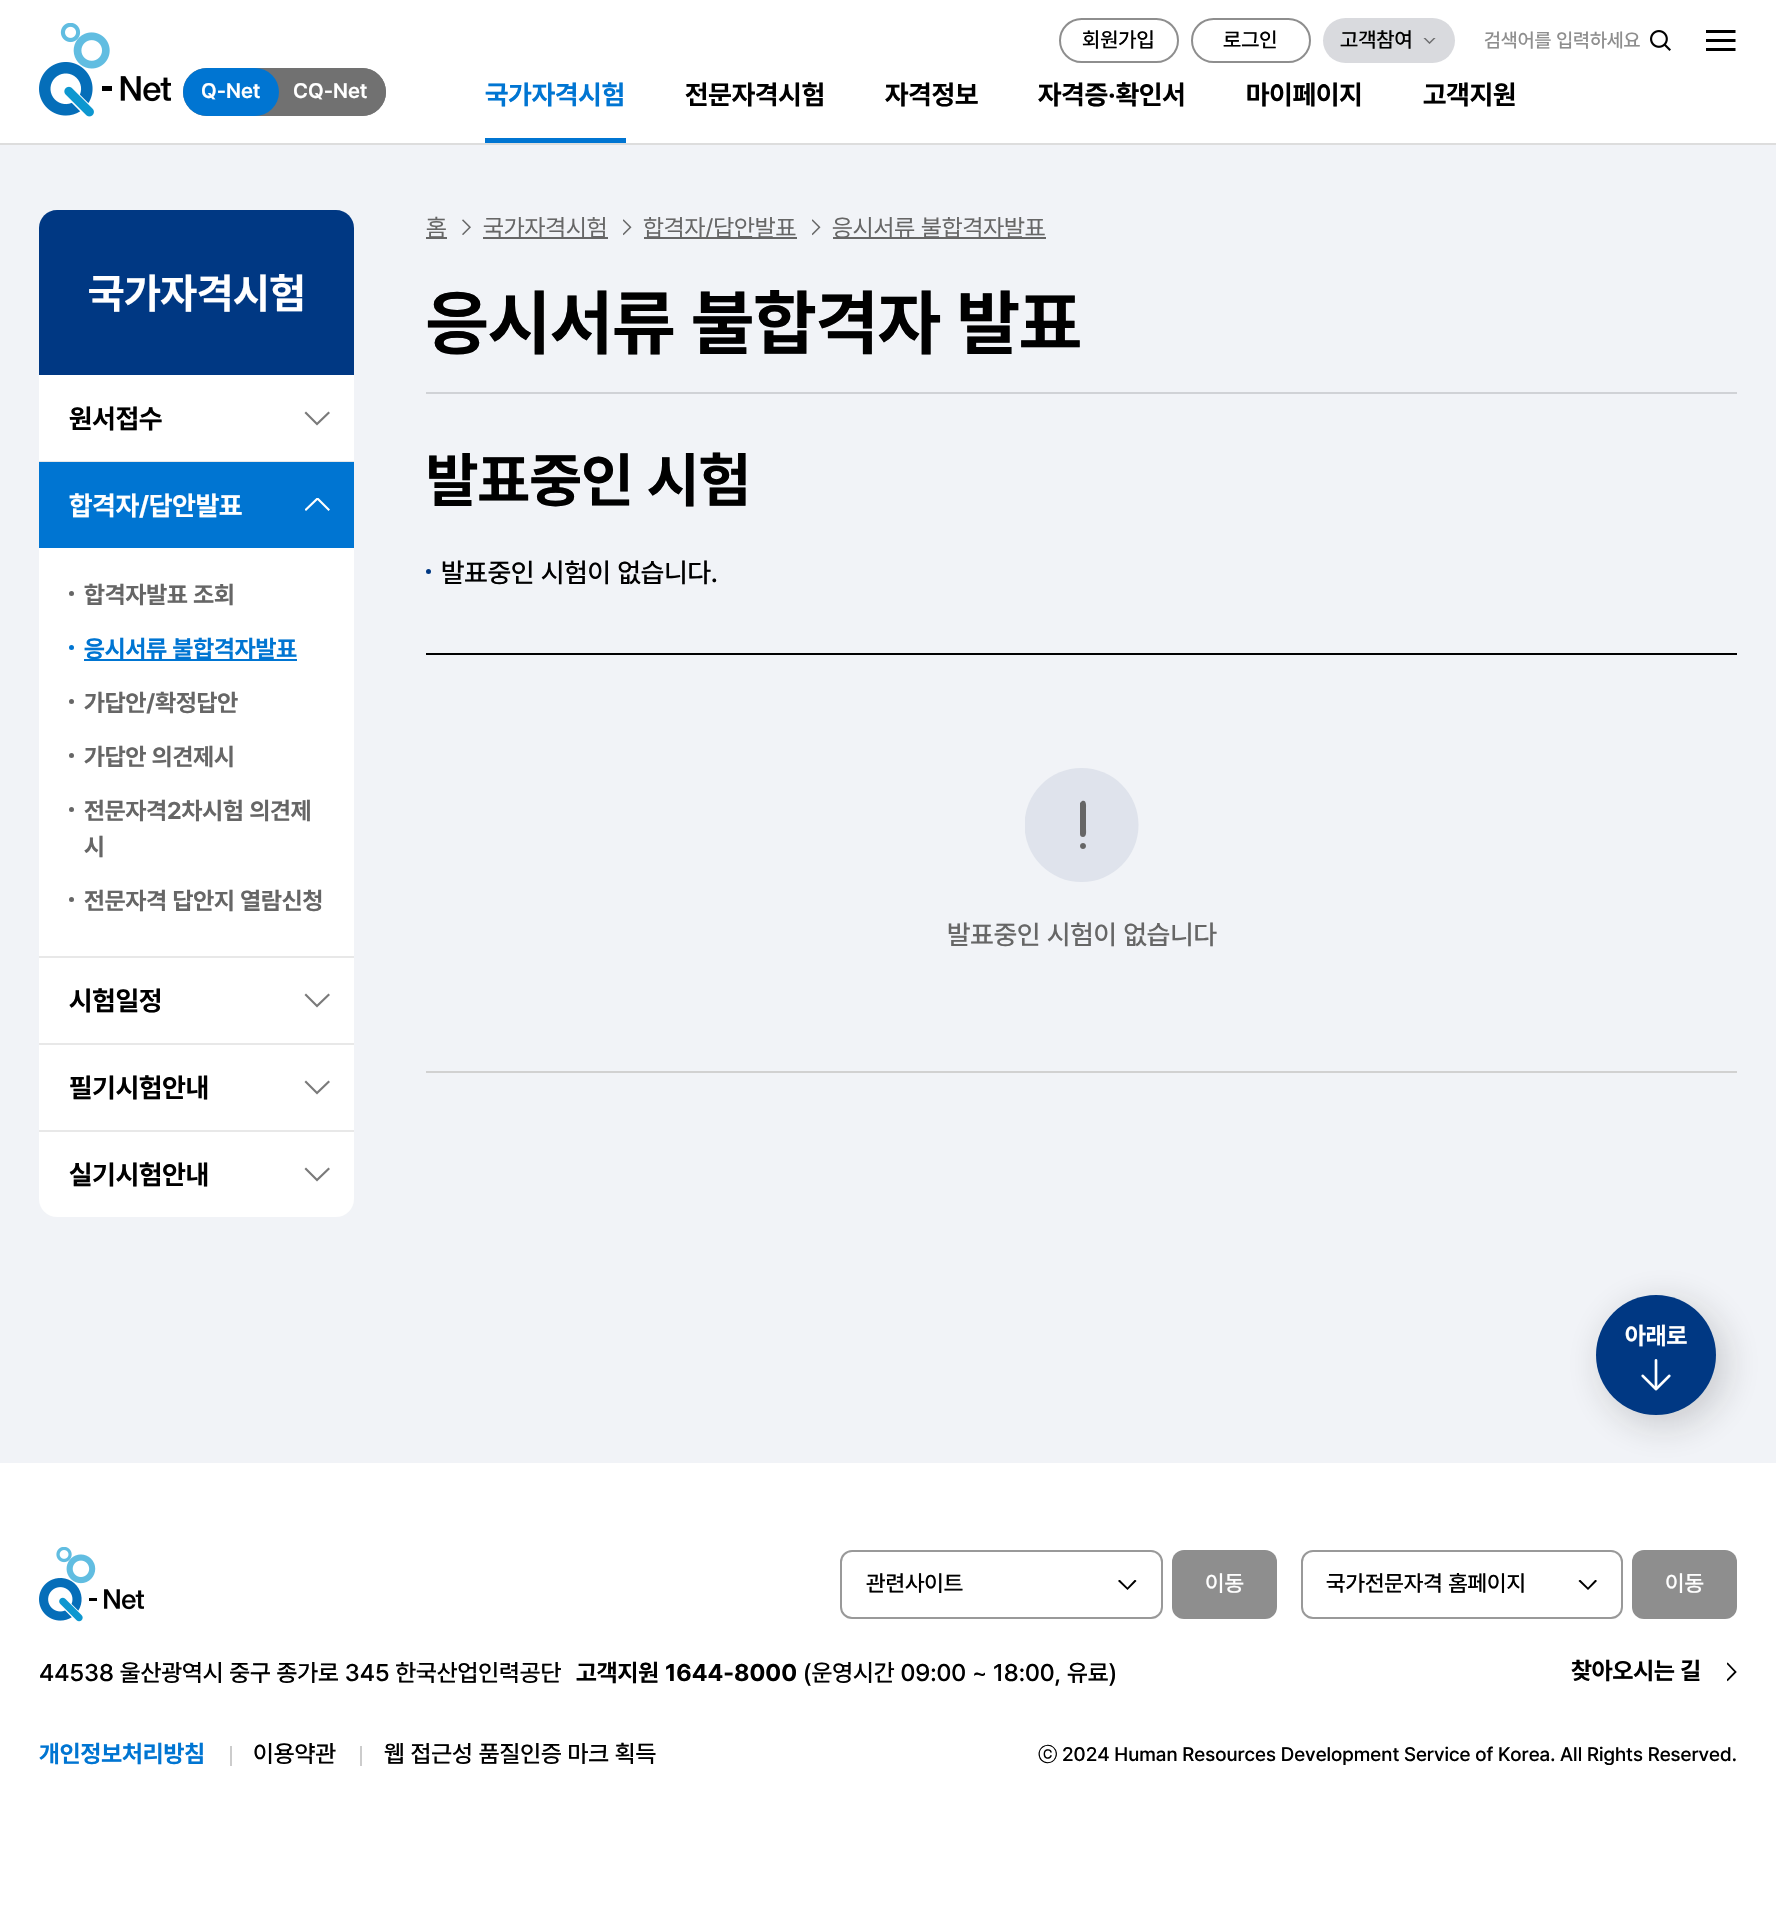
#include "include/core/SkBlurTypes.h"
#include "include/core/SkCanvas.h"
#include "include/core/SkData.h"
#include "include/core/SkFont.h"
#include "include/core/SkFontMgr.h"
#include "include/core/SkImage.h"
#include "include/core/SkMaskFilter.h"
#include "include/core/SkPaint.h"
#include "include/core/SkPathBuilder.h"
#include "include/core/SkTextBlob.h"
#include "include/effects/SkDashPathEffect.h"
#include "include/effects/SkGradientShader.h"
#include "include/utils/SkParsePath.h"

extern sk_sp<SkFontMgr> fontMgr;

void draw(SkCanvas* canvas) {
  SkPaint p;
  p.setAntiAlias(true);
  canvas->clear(SK_ColorWHITE);
  p.setColor(SkColorSetRGB(221, 221, 221));
  canvas->drawRect(SkRect::MakeLTRB(0, 143, 1776, 145), p);
  canvas->drawImageRect(SkImages::DeferredFromEncodedData(SkData::MakeFromFileName("images/1.png")), SkRect::MakeLTRB(39, 23, 171, 117), SkSamplingOptions());
  p.setStyle(SkPaint::kStroke_Style);
  p.setStrokeWidth(2);
  p.setColor(SkColorSetRGB(142, 142, 142));
  canvas->drawRoundRect(SkRect::MakeLTRB(1060, 19, 1178, 62), 21.5f, 21.5f, p);
  canvas->drawRoundRect(SkRect::MakeLTRB(1192, 19, 1310, 62), 21.5f, 21.5f, p);
  p.setStyle(SkPaint::kFill_Style);
  p.setColor(SkColorSetRGB(217, 218, 222));
  canvas->drawRoundRect(SkRect::MakeLTRB(1323, 18, 1455, 63), 22.5f, 22.5f, p);
  canvas->drawImageRect(SkImages::DeferredFromEncodedData(SkData::MakeFromFileName("images/2.png")), SkRect::MakeLTRB(1423, 38, 1436, 44), SkSamplingOptions());
  canvas->drawImageRect(SkImages::DeferredFromEncodedData(SkData::MakeFromFileName("images/3.png")), SkRect::MakeLTRB(1650, 30, 1671, 51), SkSamplingOptions());
  canvas->drawImageRect(SkImages::DeferredFromEncodedData(SkData::MakeFromFileName("images/4.png")), SkRect::MakeLTRB(1706, 30, 1736, 51), SkSamplingOptions());
  p.setColor(SkColorSetRGB(113, 113, 113));
  canvas->drawRoundRect(SkRect::MakeLTRB(183, 68, 386, 116), 24, 24, p);
  canvas->drawRoundRect(SkRect::MakeLTRB(275, 68, 386, 116), 24, 24, p);
  p.setColor(SkColorSetRGB(0, 117, 210));
  canvas->drawRoundRect(SkRect::MakeLTRB(183, 68, 279, 116), 24, 24, p);
  canvas->drawRect(SkRect::MakeLTRB(485, 138, 626, 143), p);
  p.setColor(SkColorSetRGB(241, 243, 247));
  canvas->drawRect(SkRect::MakeLTRB(0, 145, 1776, 1463), p);
  p.setColor(SK_ColorWHITE);
  canvas->drawRoundRect(SkRect::MakeLTRB(39, 210, 354, 1217), 18, 18, p);
  p.setColor(SkColorSetRGB(0, 56, 131));
  canvas->drawPath(SkPathBuilder().moveTo(57, 210).lineTo(336, 210).cubicTo(346, 210, 354, 218, 354, 228).lineTo(354, 375).lineTo(39, 375).lineTo(39, 228).cubicTo(39, 218, 47, 210, 57, 210).close().detach(), p);
  p.setColor(SkColorSetRGB(232, 232, 232));
  canvas->drawRect(SkRect::MakeLTRB(39, 461, 354, 462), p);
  p.setColor(SkColorSetRGB(122, 122, 122));
  canvas->drawPath(SkPathBuilder().moveTo(317, 425.5f).lineTo(304.5f, 413).lineTo(306, 411.5f).lineTo(317, 422.5f).lineTo(328.5f, 411.5f).lineTo(330, 413).close().detach(), p);
  p.setColor(SkColorSetRGB(232, 232, 232));
  canvas->drawRect(SkRect::MakeLTRB(39, 956, 354, 958), p);
  p.setColor(SkColorSetRGB(0, 117, 210));
  canvas->drawRect(SkRect::MakeLTRB(39, 462, 354, 548), p);
  canvas->save();
  canvas->clipRect(SkRect::MakeLTRB(305, 498, 330, 513));
  p.setColor(SK_ColorWHITE);
  canvas->drawPath(SkPathBuilder().moveTo(317.5f, 497).lineTo(330, 509.5f).lineTo(328.5f, 511).lineTo(317.5f, 500).lineTo(306, 511).lineTo(304.5f, 509.5f).close().detach(), p);
  canvas->restore();
  p.setColor(SkColorSetRGB(102, 102, 102));
  canvas->drawCircle(71.5f, 593.5f, 2.5f, p);
  p.setColor(SkColorSetRGB(0, 117, 210));
  canvas->drawCircle(71.5f, 647.5f, 2.5f, p);
  canvas->drawRect(SkRect::MakeLTRB(84, 659, 297, 661), p);
  p.setColor(SkColorSetRGB(102, 102, 102));
  canvas->drawCircle(71.5f, 701.5f, 2.5f, p);
  canvas->drawCircle(71.5f, 755.5f, 2.5f, p);
  canvas->drawCircle(71.5f, 809.5f, 2.5f, p);
  canvas->drawCircle(71.5f, 899.5f, 2.5f, p);
  p.setColor(SkColorSetRGB(232, 232, 232));
  canvas->drawRect(SkRect::MakeLTRB(39, 1043, 354, 1045), p);
  p.setColor(SkColorSetRGB(122, 122, 122));
  canvas->drawPath(SkPathBuilder().moveTo(317, 1007.5f).lineTo(304.5f, 995).lineTo(306, 993.5f).lineTo(317, 1004.5f).lineTo(328.5f, 993.5f).lineTo(330, 995).close().detach(), p);
  p.setColor(SkColorSetRGB(232, 232, 232));
  canvas->drawRect(SkRect::MakeLTRB(39, 1130, 354, 1132), p);
  p.setColor(SkColorSetRGB(122, 122, 122));
  canvas->drawPath(SkPathBuilder().moveTo(317, 1094.5f).lineTo(304.5f, 1082).lineTo(306, 1080.5f).lineTo(317, 1091.5f).lineTo(328.5f, 1080.5f).lineTo(330, 1082).close().detach(), p);
  canvas->drawPath(SkPathBuilder().moveTo(317, 1181.5f).lineTo(304.5f, 1169).lineTo(306, 1167.5f).lineTo(317, 1178.5f).lineTo(328.5f, 1167.5f).lineTo(330, 1169).close().detach(), p);
  p.setColor(SkColorSetRGB(102, 102, 102));
  canvas->drawRect(SkRect::MakeLTRB(426, 237, 447, 239), p);
  canvas->drawImageRect(SkImages::DeferredFromEncodedData(SkData::MakeFromFileName("images/5.png")), SkRect::MakeLTRB(462, 219, 471, 235), SkSamplingOptions());
  canvas->drawRect(SkRect::MakeLTRB(483, 237, 608, 239), p);
  canvas->drawImageRect(SkImages::DeferredFromEncodedData(SkData::MakeFromFileName("images/6.png")), SkRect::MakeLTRB(623, 219, 632, 236), SkSamplingOptions());
  canvas->drawRect(SkRect::MakeLTRB(644, 237, 797, 239), p);
  canvas->drawImageRect(SkImages::DeferredFromEncodedData(SkData::MakeFromFileName("images/6.png")), SkRect::MakeLTRB(812, 219, 821, 236), SkSamplingOptions());
  canvas->drawRect(SkRect::MakeLTRB(833, 237, 1046, 239), p);
  p.setColor(SkColorSetRGB(208, 210, 214));
  canvas->drawRect(SkRect::MakeLTRB(426, 392, 1737, 394), p);
  p.setColor(SkColorSetRGB(0, 56, 131));
  canvas->drawCircle(428.5f, 571.5f, 2.5f, p);
  p.setColor(SK_ColorBLACK);
  canvas->drawRect(SkRect::MakeLTRB(426, 653, 1737, 655), p);
  p.setColor(SkColorSetRGB(209, 209, 209));
  canvas->drawRect(SkRect::MakeLTRB(426, 1071, 1737, 1073), p);
  canvas->save();
  canvas->clipRect(SkRect::MakeLTRB(1025, 768, 1139, 882));
  p.setColor(SkColorSetRGB(223, 227, 236));
  canvas->drawCircle(1081.5f, 825, 57, p);
  canvas->restore();
  p.setColor(SkColorSetRGB(102, 102, 102));
  canvas->drawPath(SkPathBuilder().moveTo(1080, 846).cubicTo(1080, 842, 1086, 842, 1086, 846).cubicTo(1086, 850, 1080, 850, 1080, 846).close().moveTo(1080, 834).lineTo(1080, 803).lineTo(1082, 801).cubicTo(1087, 799, 1086, 807, 1086, 809).lineTo(1086, 829).cubicTo(1086, 831, 1087, 837, 1083, 837).cubicTo(1081, 837, 1080, 836, 1080, 834).close().detach(), p);
  p.setColor(SkColorSetARGB(51, 24, 24, 24));
  p.setMaskFilter(SkMaskFilter::MakeBlur(kNormal_SkBlurStyle, 19));
  canvas->drawRoundRect(SkRect::MakeLTRB(1604, 1304, 1724, 1424), 60, 60, p);
  p.setMaskFilter(nullptr);
  p.setColor(SkColorSetRGB(0, 56, 131));
  canvas->drawCircle(1656, 1355, 60, p);
  canvas->drawImageRect(SkImages::DeferredFromEncodedData(SkData::MakeFromFileName("images/7.png")), SkRect::MakeLTRB(1641, 1359, 1671, 1391), SkSamplingOptions());
  canvas->save();
  canvas->clipRect(SkRect::MakeLTRB(1118, 1580, 1137, 1590));
  p.setColor(SK_ColorBLACK);
  canvas->drawPath(SkPathBuilder().moveTo(1127.5f, 1590).lineTo(1118, 1581).lineTo(1119.5f, 1579.5f).lineTo(1127.5f, 1587.5f).lineTo(1135, 1579.5f).lineTo(1136.5f, 1581).close().detach(), p);
  canvas->restore();
  p.setStyle(SkPaint::kStroke_Style);
  p.setColor(SkColorSetRGB(153, 153, 153));
  canvas->drawRoundRect(SkRect::MakeLTRB(841, 1551, 1162, 1618), 11, 11, p);
  p.setStyle(SkPaint::kFill_Style);
  p.setColor(SkColorSetRGB(142, 142, 142));
  canvas->drawRoundRect(SkRect::MakeLTRB(1172, 1550, 1277, 1619), 12, 12, p);
  canvas->save();
  canvas->clipRect(SkRect::MakeLTRB(1578, 1580, 1598, 1590));
  p.setColor(SK_ColorBLACK);
  canvas->drawPath(SkPathBuilder().moveTo(1588, 1590).lineTo(1578.5f, 1581).lineTo(1580, 1579.5f).lineTo(1588, 1587.5f).lineTo(1595.5f, 1579.5f).lineTo(1597, 1581).close().detach(), p);
  canvas->restore();
  p.setStyle(SkPaint::kStroke_Style);
  p.setColor(SkColorSetRGB(153, 153, 153));
  canvas->drawRoundRect(SkRect::MakeLTRB(1302, 1551, 1622, 1618), 11, 11, p);
  p.setStyle(SkPaint::kFill_Style);
  p.setColor(SkColorSetRGB(142, 142, 142));
  canvas->drawRoundRect(SkRect::MakeLTRB(1632, 1550, 1737, 1619), 12, 12, p);
  canvas->save();
  canvas->clipRect(SkRect::MakeLTRB(1727, 1662, 1737, 1682));
  p.setStyle(SkPaint::kStroke_Style);
  p.setStrokeWidth(1.8f);
  p.setColor(SK_ColorBLACK);
  canvas->drawPath(SkPathBuilder().moveTo(1727, 1680.5f).lineTo(1735.5f, 1672).lineTo(1727, 1663).detach(), p);
  canvas->restore();
  canvas->drawImageRect(SkImages::DeferredFromEncodedData(SkData::MakeFromFileName("images/8.png")), SkRect::MakeLTRB(39, 1547, 144, 1622), SkSamplingOptions());
  p.setStyle(SkPaint::kFill_Style);
  p.setColor(SkColorSetRGB(204, 204, 204));
  canvas->drawRect(SkRect::MakeLTRB(230, 1746, 232, 1766), p);
  canvas->drawRect(SkRect::MakeLTRB(360, 1746, 362, 1766), p);
  SkFont font1(fontMgr->matchFamilyStyle("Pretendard", SkFontStyle(500, SkFontStyle::kNormal_Width, SkFontStyle::kUpright_Slant)), 21);
  font1.setSubpixel(true);
  p.setColor(SK_ColorBLACK);
  canvas->drawString("회원가입", 1082, 47, font1, p);
  canvas->drawString("로그인", 1223, 47, font1, p);
  canvas->drawString("고객참여", 1340, 47, font1, p);
  SkFont font2(fontMgr->matchFamilyStyle("Pretendard", SkFontStyle(500, SkFontStyle::kNormal_Width, SkFontStyle::kUpright_Slant)), 19.5f);
  font2.setSubpixel(true);
  p.setColor(SkColorSetRGB(142, 142, 142));
  canvas->drawString("검색어를 입력하세요", 1484, 47, font2, p);
  SkFont font3(fontMgr->matchFamilyStyle("Pretendard", SkFontStyle(600, SkFontStyle::kNormal_Width, SkFontStyle::kUpright_Slant)), 21);
  font3.setSubpixel(true);
  p.setColor(SK_ColorWHITE);
  canvas->drawString("Q-Net", 201, 98, font3, p);
  canvas->drawString("CQ-Net", 293, 98, font3, p);
  SkFont font4(fontMgr->matchFamilyStyle("Pretendard", SkFontStyle::Bold()), 27);
  font4.setSubpixel(true);
  p.setColor(SkColorSetRGB(0, 117, 210));
  canvas->drawString("국가자격시험", 485, 104, font4, p);
  p.setColor(SK_ColorBLACK);
  canvas->drawString("전문자격시험", 685, 104, font4, p);
  canvas->drawString("자격정보", 885, 104, font4, p);
  canvas->drawString("자격증·확인서", 1038, 104, font4, p);
  canvas->drawString("마이페이지", 1246, 104, font4, p);
  canvas->drawString("고객지원", 1423, 104, font4, p);
  SkFont font5(fontMgr->matchFamilyStyle("Pretendard", SkFontStyle::Bold()), 42);
  font5.setSubpixel(true);
  p.setColor(SK_ColorWHITE);
  canvas->drawString("국가자격시험", 88, 308, font5, p);
  p.setColor(SK_ColorBLACK);
  canvas->drawString("원서접수", 69, 428, font4, p);
  p.setColor(SK_ColorWHITE);
  canvas->drawString("합격자/답안발표", 69, 515, font4, p);
  SkFont font6(fontMgr->matchFamilyStyle("Pretendard", SkFontStyle::Bold()), 24);
  font6.setSubpixel(true);
  p.setColor(SkColorSetRGB(102, 102, 102));
  canvas->drawString("합격자발표 조회", 84, 603, font6, p);
  p.setColor(SkColorSetRGB(0, 117, 210));
  canvas->drawString("응시서류 불합격자발표", 84, 657, font6, p);
  p.setColor(SkColorSetRGB(102, 102, 102));
  canvas->drawString("가답안/확정답안", 84, 711, font6, p);
  canvas->drawString("가답안 의견제시", 84, 765, font6, p);
  canvas->drawString("전문자격2차시험 의견제", 84, 819, font6, p);
  canvas->drawString("시", 84, 855, font6, p);
  canvas->drawString("전문자격 답안지 열람신청", 84, 909, font6, p);
  p.setColor(SK_ColorBLACK);
  canvas->drawString("시험일정", 69, 1010, font4, p);
  canvas->drawString("필기시험안내", 69, 1097, font4, p);
  canvas->drawString("실기시험안내", 69, 1184, font4, p);
  SkFont font7(fontMgr->matchFamilyStyle("Pretendard", SkFontStyle::Normal()), 24);
  font7.setSubpixel(true);
  p.setColor(SkColorSetRGB(102, 102, 102));
  canvas->drawString("홈", 426, 236, font7, p);
  canvas->drawString("국가자격시험", 483, 236, font7, p);
  canvas->drawString("합격자/답안발표", 643, 236, font7, p);
  canvas->drawString("응시서류 불합격자발표", 832, 236, font7, p);
  SkFont font8(fontMgr->matchFamilyStyle("Pretendard", SkFontStyle::Bold()), 72);
  font8.setSubpixel(true);
  p.setColor(SK_ColorBLACK);
  canvas->drawString("응시서류 불합격자 발표", 426, 348, font8, p);
  SkFont font9(fontMgr->matchFamilyStyle("Pretendard", SkFontStyle::Bold()), 60);
  font9.setSubpixel(true);
  canvas->drawString("발표중인 시험", 426, 501, font9, p);
  SkFont font10(fontMgr->matchFamilyStyle("Pretendard", SkFontStyle(500, SkFontStyle::kNormal_Width, SkFontStyle::kUpright_Slant)), 27);
  font10.setSubpixel(true);
  canvas->drawString("발표중인 시험이 없습니다.", 441, 582, font10, p);
  p.setColor(SkColorSetRGB(102, 102, 102));
  canvas->drawString("발표중인 시험이 없습니다", 947, 944, font10, p);
  p.setColor(SK_ColorWHITE);
  canvas->drawString("아래로", 1625, 1344, font6, p);
  SkFont font11(fontMgr->matchFamilyStyle("Pretendard", SkFontStyle(500, SkFontStyle::kNormal_Width, SkFontStyle::kUpright_Slant)), 22.5f);
  font11.setSubpixel(true);
  p.setColor(SK_ColorBLACK);
  canvas->drawString("관련사이트", 866, 1591, font11, p);
  p.setColor(SK_ColorWHITE);
  canvas->drawString("이동", 1205, 1591, font11, p);
  p.setColor(SK_ColorBLACK);
  canvas->drawString("국가전문자격 홈페이지", 1326, 1591, font11, p);
  p.setColor(SK_ColorWHITE);
  canvas->drawString("이동", 1665, 1591, font11, p);
  p.setColor(SK_ColorBLACK);
  canvas->drawString("찾아오시는 길", 1571, 1679, font6, p);
  SkFont font12(fontMgr->matchFamilyStyle("Pretendard", SkFontStyle(500, SkFontStyle::kNormal_Width, SkFontStyle::kUpright_Slant)), 24);
  font12.setSubpixel(true);
  canvas->drawString("44538 울산광역시 중구 종가로 345 한국산업인력공단", 39, 1681, font12, p);
  canvas->drawString("고객지원", 576, 1681, font6, p);
  canvas->drawString("1644-8000", 665, 1681, font6, p);
  canvas->drawString("(운영시간 09:00 ~ 18:00, 유료)", 803, 1681, font12, p);
  p.setColor(SkColorSetRGB(0, 117, 210));
  canvas->drawString("개인정보처리방침", 39, 1762, font6, p);
  p.setColor(SK_ColorBLACK);
  canvas->drawString("이용약관", 253, 1762, font12, p);
  canvas->drawString("웹 접근성 품질인증 마크 획득", 384, 1762, font12, p);
  SkFont font13(fontMgr->matchFamilyStyle("WenQuanYi Zen Hei", SkFontStyle(500, SkFontStyle::kNormal_Width, SkFontStyle::kUpright_Slant)), 19.5f);
  font13.setSubpixel(true);
  canvas->drawString("ⓒ", 1038, 1761, font13, p);
  canvas->drawString("2024 Human Resources Development Service of Korea. All Rights Reserved.", 1062, 1761, font2, p);
}
